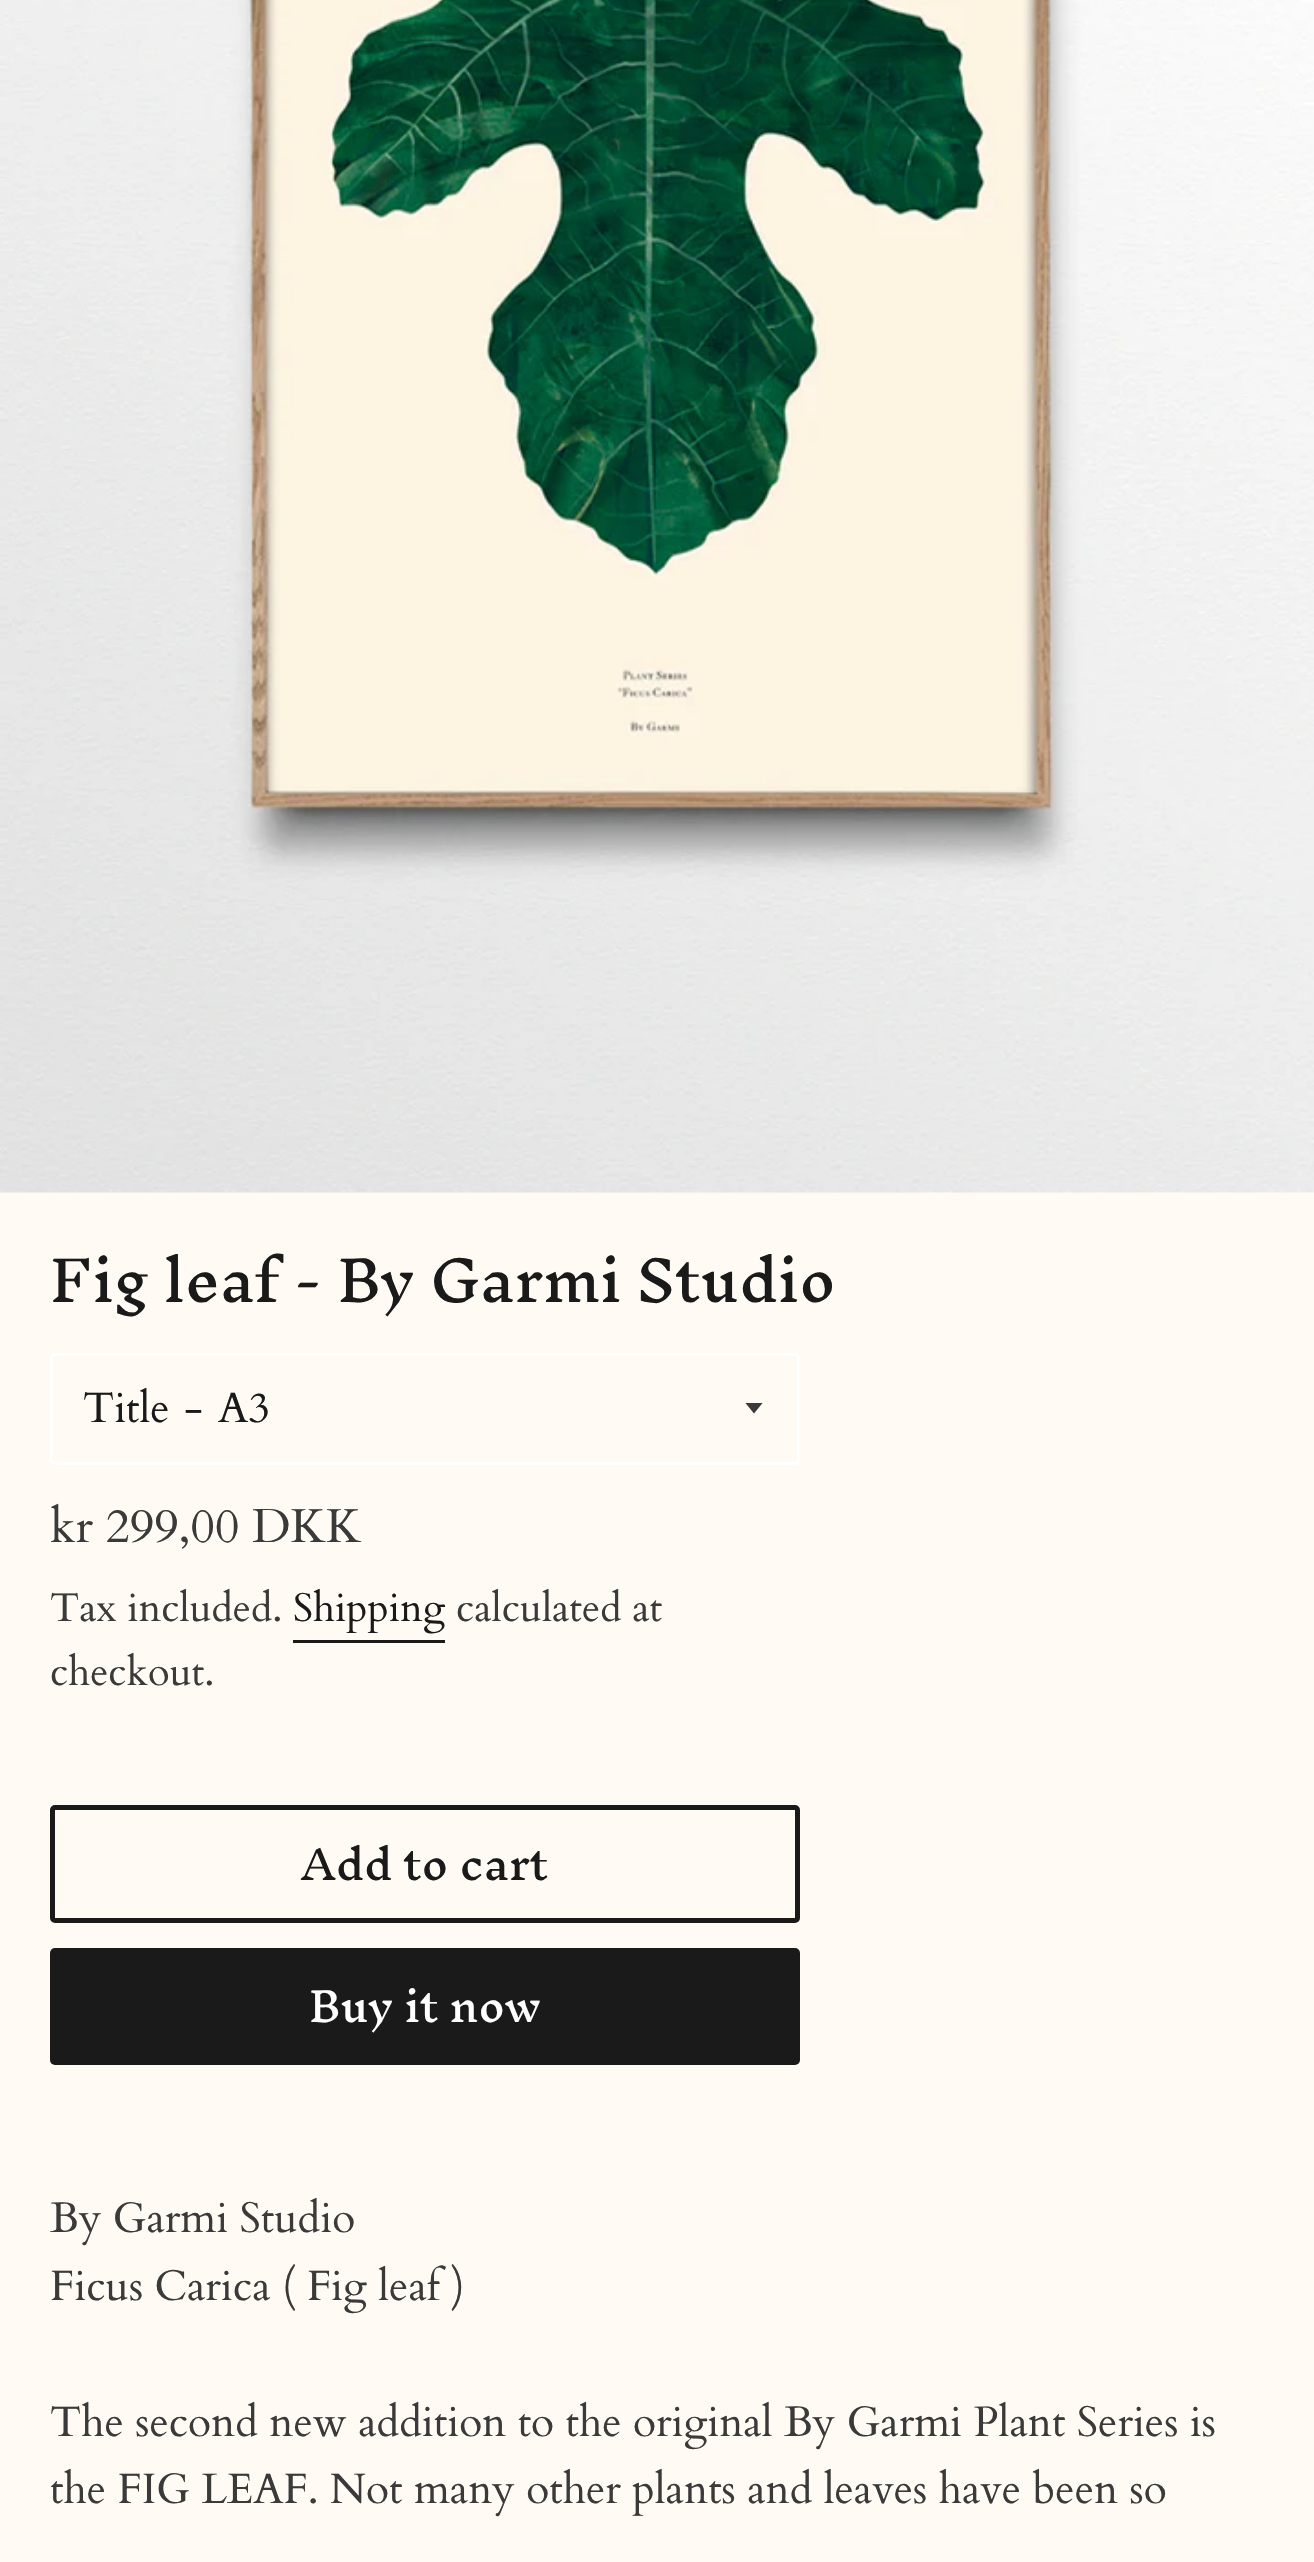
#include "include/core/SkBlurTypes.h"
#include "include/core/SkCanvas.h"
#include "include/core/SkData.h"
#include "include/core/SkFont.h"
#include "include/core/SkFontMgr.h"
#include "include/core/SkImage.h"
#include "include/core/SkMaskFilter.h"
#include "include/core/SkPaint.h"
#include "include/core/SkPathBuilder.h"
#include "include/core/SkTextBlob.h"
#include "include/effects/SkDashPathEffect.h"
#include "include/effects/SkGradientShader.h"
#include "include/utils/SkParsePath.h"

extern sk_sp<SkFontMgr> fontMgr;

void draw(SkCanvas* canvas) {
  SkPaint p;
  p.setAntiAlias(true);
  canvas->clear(SkColorSetRGB(255, 250, 244));
  canvas->drawImageRect(SkImages::DeferredFromEncodedData(SkData::MakeFromFileName("images/1.png")), SkRect::MakeLTRB(0, 0, 1314, 1193), SkSamplingOptions());
  p.setStyle(SkPaint::kStroke_Style);
  p.setStrokeWidth(3);
  p.setColor(SK_ColorWHITE);
  canvas->drawRoundRect(SkRect::MakeLTRB(51.5f, 1354.5f, 798.5f, 1463.5f), 3.5f, 3.5f, p);
  canvas->save();
  canvas->clipRect(SkRect::MakeLTRB(745, 1403, 765, 1415));
  p.setStyle(SkPaint::kFill_Style);
  p.setColor(SkColorSetRGB(58, 58, 58));
  canvas->drawPath(SkPathBuilder().moveTo(745, 1402.5f).lineTo(754, 1413.5f).lineTo(763, 1402.5f).close().detach(), p);
  canvas->restore();
  p.setColor(SkColorSetRGB(26, 26, 26));
  canvas->drawRect(SkRect::MakeLTRB(293, 1640, 445, 1643), p);
  p.setStyle(SkPaint::kStroke_Style);
  p.setStrokeWidth(5);
  canvas->drawRoundRect(SkRect::MakeLTRB(52.5f, 1807.5f, 797.5f, 1920.5f), 2.5f, 2.5f, p);
  p.setStyle(SkPaint::kFill_Style);
  canvas->drawRoundRect(SkRect::MakeLTRB(50, 1948, 800, 2065), 5, 5, p);
  SkFont font1(fontMgr->matchFamilyStyle("Inknut Antiqua", SkFontStyle::Normal()), 55);
  font1.setSubpixel(true);
  canvas->drawString("Fig leaf - By Garmi Studio", 50, 1302, font1, p);
  SkFont font2(fontMgr->matchFamilyStyle("Cardo", SkFontStyle::Normal()), 42.5f);
  font2.setSubpixel(true);
  canvas->drawString("Title", 83, 1422, font2, p);
  canvas->drawString("-", 184, 1422, font2, p);
  canvas->drawString("A3", 218, 1422, font2, p);
  SkFont font3(fontMgr->matchFamilyStyle("Cardo", SkFontStyle::Normal()), 47.5f);
  font3.setSubpixel(true);
  p.setColor(SkColorSetRGB(58, 58, 58));
  canvas->drawString("kr 299,00 DKK", 50, 1542, font3, p);
  SkFont font4(fontMgr->matchFamilyStyle("Cardo", SkFontStyle::Normal()), 40);
  font4.setSubpixel(true);
  canvas->drawString("Tax included.", 50, 1621, font4, p);
  p.setColor(SkColorSetRGB(26, 26, 26));
  canvas->drawString("Shipping", 293, 1621, font4, p);
  p.setColor(SkColorSetRGB(58, 58, 58));
  canvas->drawString("calculated at", 456, 1621, font4, p);
  canvas->drawString("checkout.", 50, 1685, font4, p);
  SkFont font5(fontMgr->matchFamilyStyle("Inknut Antiqua", SkFontStyle::Normal()), 40);
  font5.setSubpixel(true);
  p.setColor(SkColorSetRGB(26, 26, 26));
  canvas->drawString("Add to cart", 301, 1880, font5, p);
  p.setColor(SK_ColorWHITE);
  canvas->drawString("Buy it now", 309, 2022, font5, p);
  p.setColor(SkColorSetRGB(58, 58, 58));
  canvas->drawString("By Garmi Studio", 50, 2232, font2, p);
  canvas->drawString("Ficus Carica ( Fig leaf )", 50, 2300, font2, p);
  canvas->drawString("The second new addition to the original By Garmi Plant Series is", 50, 2436, font2, p);
  canvas->drawString("the FIG LEAF. Not many other plants and leaves have been so", 50, 2503, font2, p);
}
